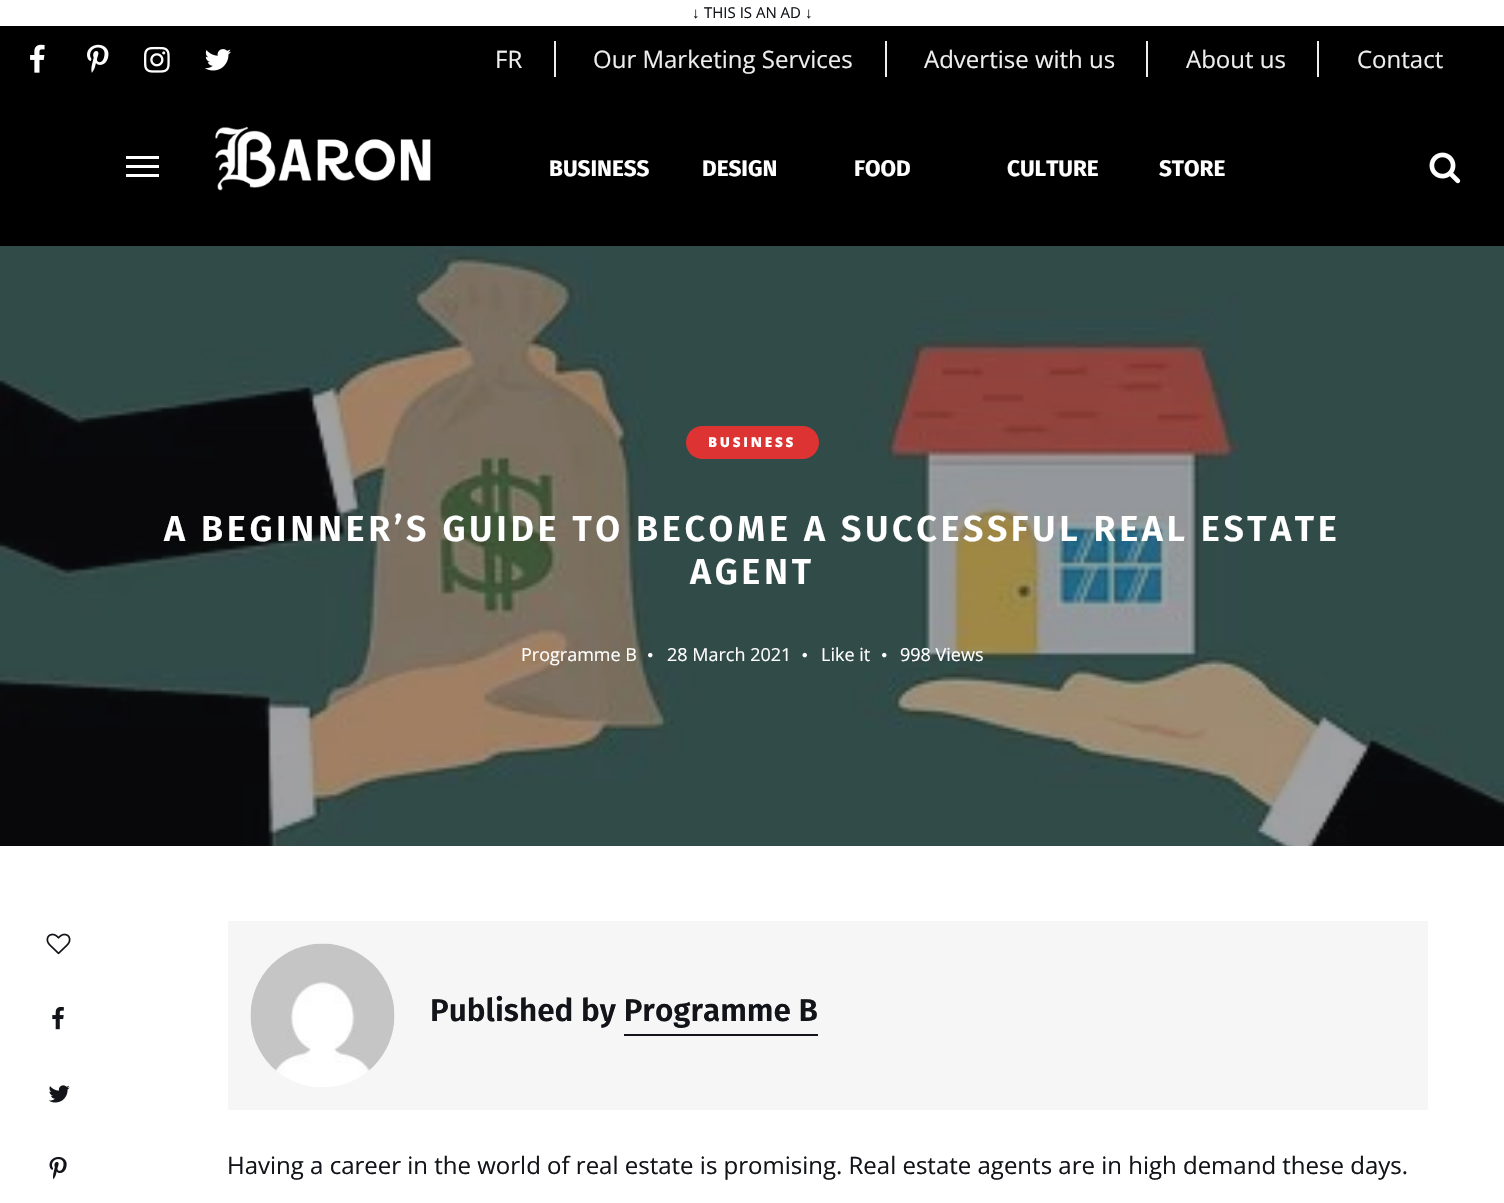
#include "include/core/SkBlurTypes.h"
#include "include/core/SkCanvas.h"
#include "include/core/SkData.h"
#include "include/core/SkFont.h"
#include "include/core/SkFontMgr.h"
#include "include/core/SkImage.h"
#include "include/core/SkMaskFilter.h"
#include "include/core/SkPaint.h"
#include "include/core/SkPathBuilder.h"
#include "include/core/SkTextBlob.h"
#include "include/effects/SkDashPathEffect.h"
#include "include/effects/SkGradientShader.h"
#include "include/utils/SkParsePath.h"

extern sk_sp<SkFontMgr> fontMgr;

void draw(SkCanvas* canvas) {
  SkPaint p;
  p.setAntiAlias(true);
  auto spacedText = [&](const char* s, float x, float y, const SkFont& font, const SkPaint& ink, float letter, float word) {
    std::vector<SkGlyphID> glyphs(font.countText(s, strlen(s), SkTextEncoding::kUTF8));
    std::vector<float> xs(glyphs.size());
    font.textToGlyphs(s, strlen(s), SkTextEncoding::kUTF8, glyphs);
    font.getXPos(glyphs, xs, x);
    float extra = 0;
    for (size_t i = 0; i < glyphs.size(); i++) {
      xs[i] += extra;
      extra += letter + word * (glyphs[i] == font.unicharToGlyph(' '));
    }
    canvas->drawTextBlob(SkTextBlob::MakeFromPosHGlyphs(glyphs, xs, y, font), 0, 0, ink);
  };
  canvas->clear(SK_ColorWHITE);
  p.setColor(SK_ColorBLACK);
  canvas->drawRect(SkRect::MakeLTRB(0, 26, 1504, 246), p);
  canvas->drawImageRect(SkImages::DeferredFromEncodedData(SkData::MakeFromFileName("images/1.png")), SkRect::MakeLTRB(30, 44, 45, 73), SkSamplingOptions());
  canvas->drawImageRect(SkImages::DeferredFromEncodedData(SkData::MakeFromFileName("images/2.png")), SkRect::MakeLTRB(87, 44, 109, 73), SkSamplingOptions());
  canvas->drawImageRect(SkImages::DeferredFromEncodedData(SkData::MakeFromFileName("images/3.png")), SkRect::MakeLTRB(144, 46, 170, 73), SkSamplingOptions());
  canvas->drawImageRect(SkImages::DeferredFromEncodedData(SkData::MakeFromFileName("images/4.png")), SkRect::MakeLTRB(205, 49, 231, 71), SkSamplingOptions());
  p.setColor(SkColorSetRGB(238, 238, 238));
  canvas->drawRect(SkRect::MakeLTRB(554, 41, 556, 77), p);
  canvas->drawRect(SkRect::MakeLTRB(885, 41, 887, 77), p);
  canvas->drawRect(SkRect::MakeLTRB(1146, 41, 1148, 77), p);
  canvas->drawRect(SkRect::MakeLTRB(1317, 41, 1319, 77), p);
  p.setColor(SK_ColorWHITE);
  canvas->drawRect(SkRect::MakeLTRB(126, 156, 159, 159), p);
  canvas->drawRect(SkRect::MakeLTRB(126, 174, 159, 177), p);
  canvas->drawRect(SkRect::MakeLTRB(126, 165, 159, 168), p);
  canvas->drawImageRect(SkImages::DeferredFromEncodedData(SkData::MakeFromFileName("images/5.png")), SkRect::MakeLTRB(215, 126, 431, 191), SkSamplingOptions());
  canvas->drawImageRect(SkImages::DeferredFromEncodedData(SkData::MakeFromFileName("images/6.png")), SkRect::MakeLTRB(1429, 152, 1461, 184), SkSamplingOptions());
  canvas->drawImageRect(SkImages::DeferredFromEncodedData(SkData::MakeFromFileName("images/7.png")), SkRect::MakeLTRB(0, 246, 1504, 846), SkSamplingOptions());
  p.setColor(SkColorSetRGB(221, 51, 51));
  canvas->drawRoundRect(SkRect::MakeLTRB(686, 426, 819, 459), 16.5f, 16.5f, p);
  canvas->drawImageRect(SkImages::DeferredFromEncodedData(SkData::MakeFromFileName("images/8.png")), SkRect::MakeLTRB(648, 652, 653, 658), SkSamplingOptions());
  canvas->drawImageRect(SkImages::DeferredFromEncodedData(SkData::MakeFromFileName("images/9.png")), SkRect::MakeLTRB(802, 652, 807, 658), SkSamplingOptions());
  canvas->drawImageRect(SkImages::DeferredFromEncodedData(SkData::MakeFromFileName("images/10.png")), SkRect::MakeLTRB(882, 652, 887, 658), SkSamplingOptions());
  canvas->drawImageRect(SkImages::DeferredFromEncodedData(SkData::MakeFromFileName("images/11.png")), SkRect::MakeLTRB(46, 933, 71, 955), SkSamplingOptions());
  canvas->drawImageRect(SkImages::DeferredFromEncodedData(SkData::MakeFromFileName("images/12.png")), SkRect::MakeLTRB(52, 1006, 64, 1030), SkSamplingOptions());
  canvas->drawImageRect(SkImages::DeferredFromEncodedData(SkData::MakeFromFileName("images/13.png")), SkRect::MakeLTRB(48, 1085, 70, 1103), SkSamplingOptions());
  canvas->drawImageRect(SkImages::DeferredFromEncodedData(SkData::MakeFromFileName("images/14.png")), SkRect::MakeLTRB(49, 1156, 67, 1180), SkSamplingOptions());
  p.setColor(SkColorSetRGB(246, 246, 246));
  canvas->drawRect(SkRect::MakeLTRB(228, 921, 1428, 1110), p);
  canvas->drawImageRect(SkImages::DeferredFromEncodedData(SkData::MakeFromFileName("images/15.png")), SkRect::MakeLTRB(250, 943, 395, 1087), SkSamplingOptions());
  p.setColor(SkColorSetRGB(19, 20, 25));
  canvas->drawRect(SkRect::MakeLTRB(624, 1034, 818, 1036), p);
  SkFont font1(fontMgr->matchFamilyStyle("Liberation Serif", SkFontStyle::Normal()), 15);
  font1.setSubpixel(true);
  canvas->drawString("↓", 692, 18, font1, p);
  SkFont font2(fontMgr->matchFamilyStyle("Open Sans", SkFontStyle::Normal()), 15);
  font2.setSubpixel(true);
  canvas->drawString("THIS IS AN AD", 704, 18, font2, p);
  canvas->drawString("↓", 805, 18, font1, p);
  SkFont font3(fontMgr->matchFamilyStyle("Open Sans", SkFontStyle::Normal()), 24);
  font3.setSubpixel(true);
  p.setColor(SkColorSetRGB(238, 238, 238));
  canvas->drawString("FR", 495, 68, font3, p);
  canvas->drawString("Our Marketing Services", 593, 68, font3, p);
  canvas->drawString("Advertise with us", 924, 68, font3, p);
  canvas->drawString("About us", 1186, 68, font3, p);
  canvas->drawString("Contact", 1357, 68, font3, p);
  SkFont font4(fontMgr->matchFamilyStyle("Fira Sans", SkFontStyle::Bold()), 22.5f);
  font4.setSubpixel(true);
  p.setColor(SK_ColorWHITE);
  canvas->drawString("BUSINESS", 549, 176, font4, p);
  canvas->drawString("DESIGN", 702, 176, font4, p);
  canvas->drawString("FOOD", 854, 176, font4, p);
  canvas->drawString("CULTURE", 1007, 176, font4, p);
  canvas->drawString("STORE", 1159, 176, font4, p);
  SkFont font5(fontMgr->matchFamilyStyle("Open Sans", SkFontStyle(800, SkFontStyle::kNormal_Width, SkFontStyle::kUpright_Slant)), 13.5f);
  font5.setSubpixel(true);
  spacedText("BUSINESS", 708, 447, font5, p, 2.75f, 0);
  SkFont font6(fontMgr->matchFamilyStyle("Fira Sans", SkFontStyle(600, SkFontStyle::kNormal_Width, SkFontStyle::kUpright_Slant)), 36);
  font6.setSubpixel(true);
  spacedText("A BEGINNER’S GUIDE TO BECOME A SUCCESSFUL REAL ESTATE", 164, 541, font6, p, 3.6f, 0);
  spacedText("AGENT", 690, 584, font6, p, 3.6f, 0);
  SkFont font7(fontMgr->matchFamilyStyle("Open Sans", SkFontStyle::Normal()), 18);
  font7.setSubpixel(true);
  canvas->drawString("Programme B", 521, 661, font7, p);
  canvas->drawString("28 March 2021", 667, 661, font7, p);
  canvas->drawString("Like it", 821, 661, font7, p);
  canvas->drawString("998 Views", 900, 661, font7, p);
  SkFont font8(fontMgr->matchFamilyStyle("Fira Sans", SkFontStyle(600, SkFontStyle::kNormal_Width, SkFontStyle::kUpright_Slant)), 31.5f);
  font8.setSubpixel(true);
  p.setColor(SkColorSetRGB(19, 20, 25));
  canvas->drawString("Published by Programme B", 430, 1021, font8, p);
  canvas->drawString("Having a career in the world of real estate is promising. Real estate agents are in high demand these days.", 227, 1174, font3, p);
}
